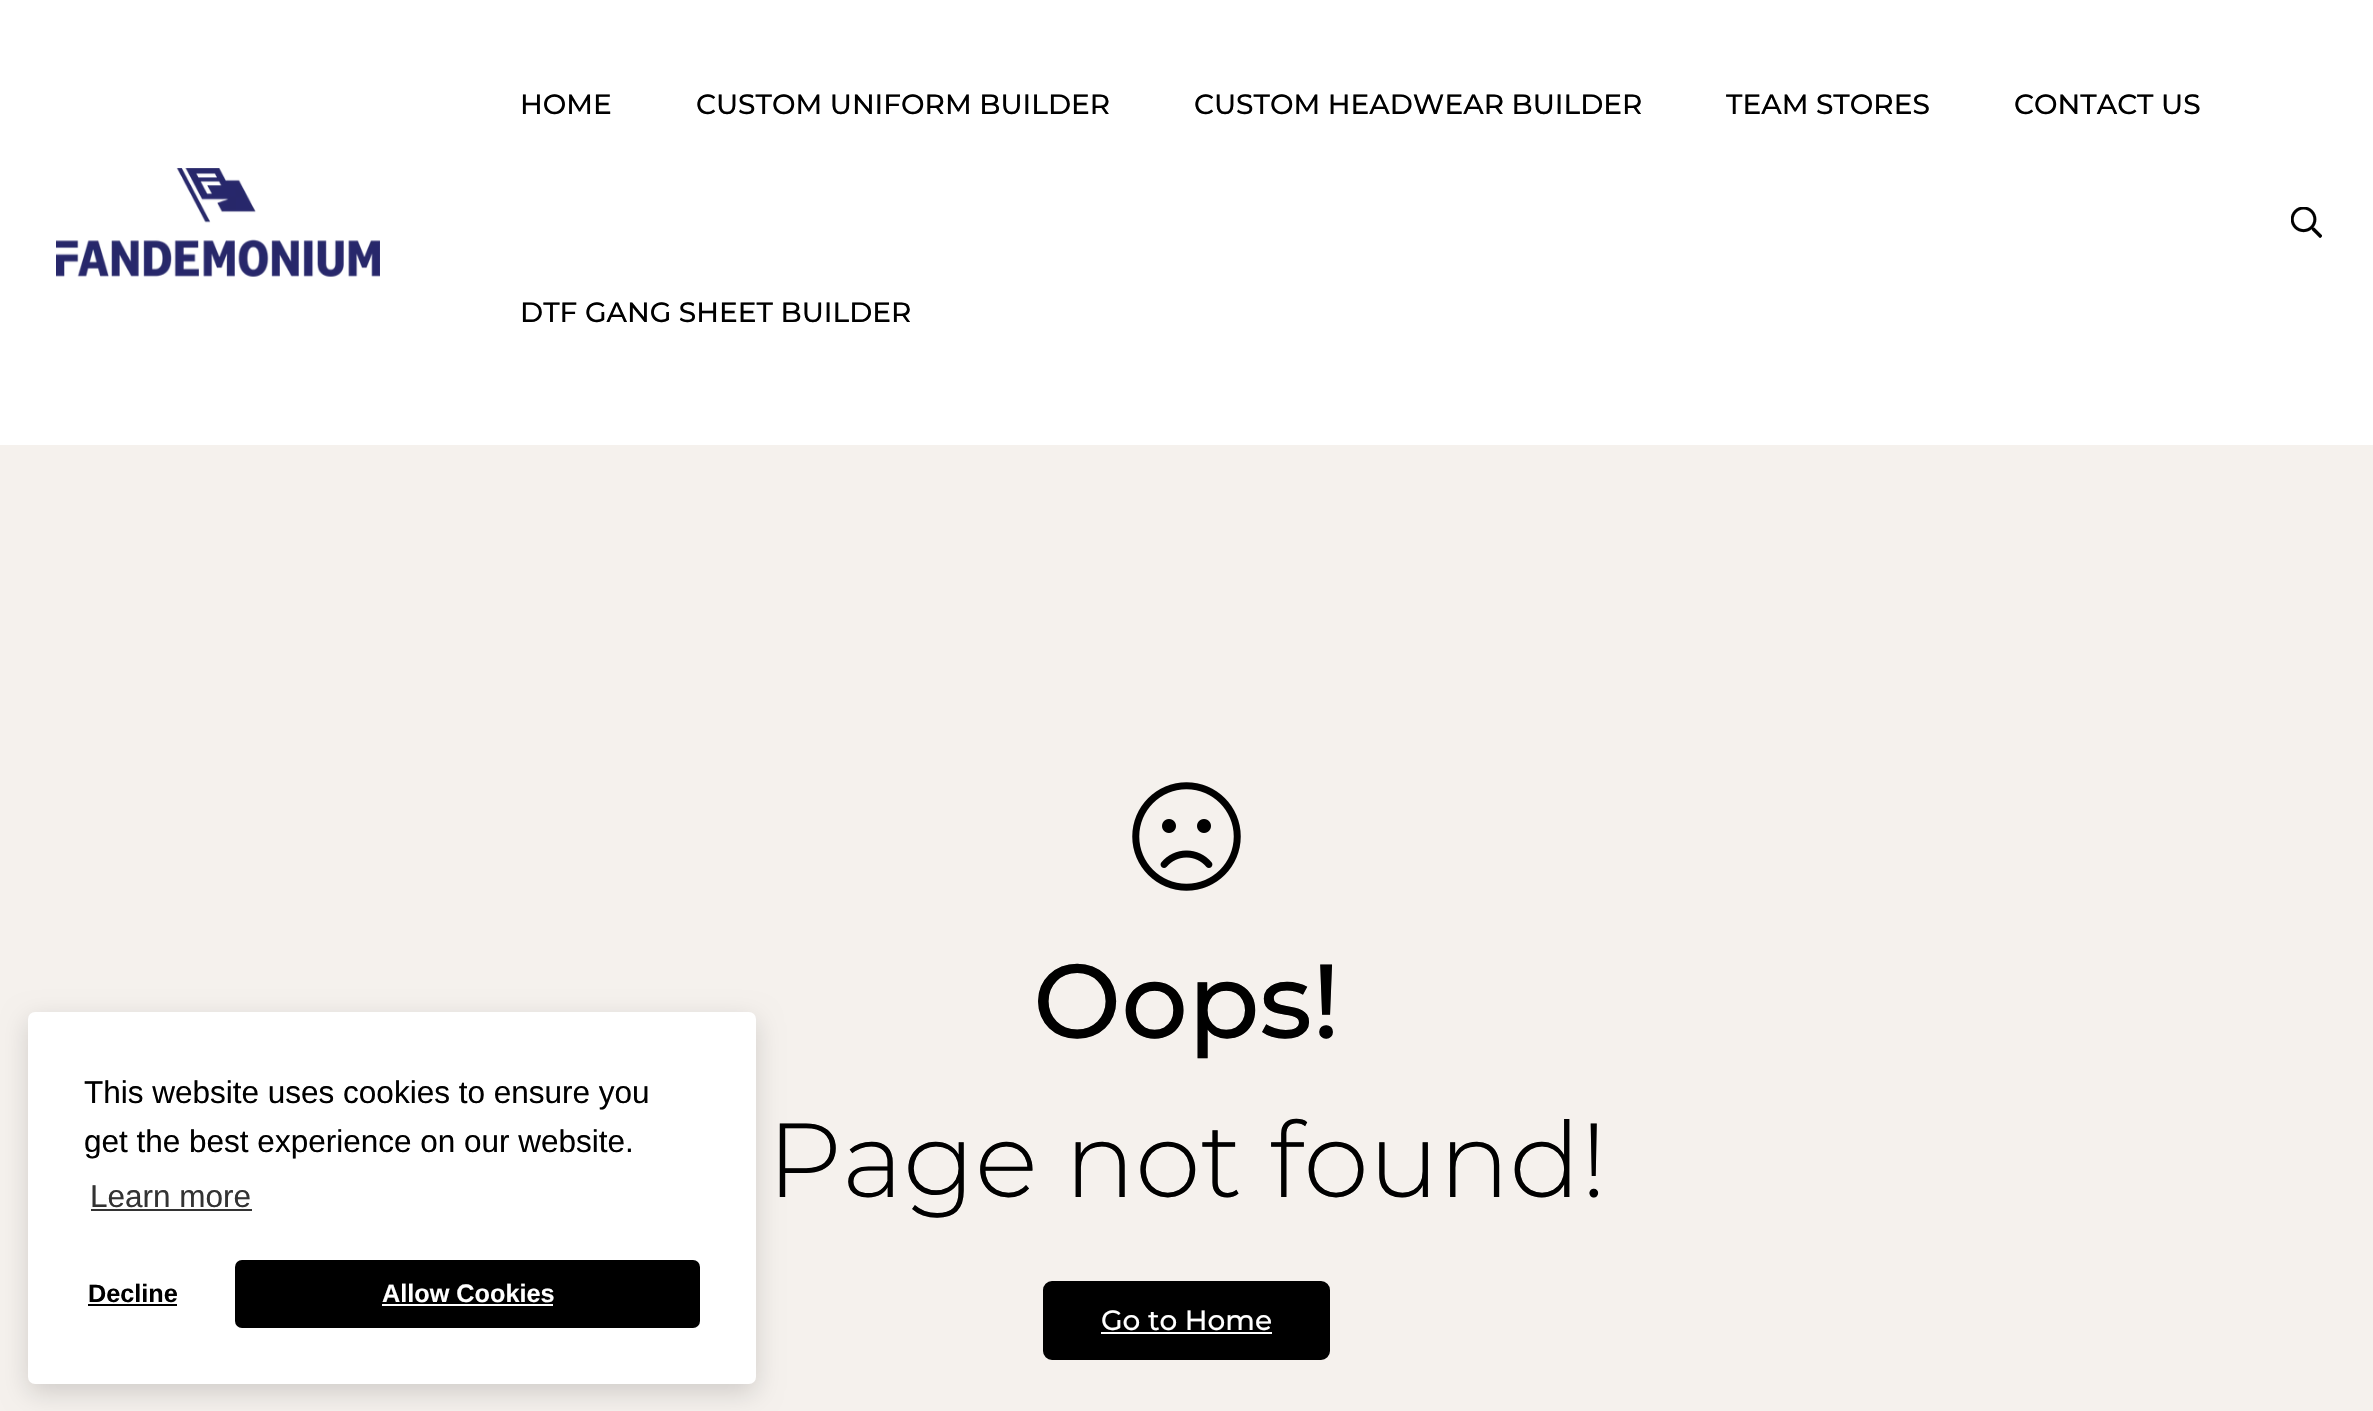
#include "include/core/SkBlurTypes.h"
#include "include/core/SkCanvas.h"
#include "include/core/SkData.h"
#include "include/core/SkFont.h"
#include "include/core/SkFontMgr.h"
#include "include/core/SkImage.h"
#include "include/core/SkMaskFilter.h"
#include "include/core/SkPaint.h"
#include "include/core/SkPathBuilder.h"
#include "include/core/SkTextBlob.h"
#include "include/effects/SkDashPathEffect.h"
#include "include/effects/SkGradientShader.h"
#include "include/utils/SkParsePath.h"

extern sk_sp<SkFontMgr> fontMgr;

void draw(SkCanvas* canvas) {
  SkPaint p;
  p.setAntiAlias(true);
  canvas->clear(SK_ColorWHITE);
  canvas->drawImageRect(SkImages::DeferredFromEncodedData(SkData::MakeFromFileName("images/1.png")), SkRect::MakeLTRB(56, 168, 380, 277), SkSamplingOptions());
  canvas->drawImageRect(SkImages::DeferredFromEncodedData(SkData::MakeFromFileName("images/2.png")), SkRect::MakeLTRB(2291, 207, 2322, 238), SkSamplingOptions());
  p.setColor(SkColorSetRGB(245, 241, 237));
  canvas->drawRect(SkRect::MakeLTRB(0, 445, 2373, 1411), p);
  p.setColor(SkColorSetARGB(38, 0, 0, 0));
  p.setMaskFilter(SkMaskFilter::MakeBlur(kNormal_SkBlurStyle, 13));
  canvas->drawRoundRect(SkRect::MakeLTRB(28, 1020, 756, 1393), 7, 7, p);
  p.setMaskFilter(nullptr);
  p.setColor(SK_ColorWHITE);
  canvas->drawRoundRect(SkRect::MakeLTRB(28, 1012, 756, 1384), 7, 7, p);
  p.setColor(SkColorSetRGB(51, 51, 51));
  canvas->drawRect(SkRect::MakeLTRB(91, 1209, 252, 1211), p);
  p.setColor(SK_ColorBLACK);
  canvas->drawRect(SkRect::MakeLTRB(88, 1304, 177, 1306), p);
  canvas->drawRoundRect(SkRect::MakeLTRB(235, 1260, 700, 1328), 7, 7, p);
  p.setColor(SK_ColorWHITE);
  canvas->drawRect(SkRect::MakeLTRB(382, 1304, 553, 1306), p);
  canvas->drawImageRect(SkImages::DeferredFromEncodedData(SkData::MakeFromFileName("images/3.png")), SkRect::MakeLTRB(1132, 782, 1241, 891), SkSamplingOptions());
  p.setColor(SK_ColorBLACK);
  canvas->drawRoundRect(SkRect::MakeLTRB(1044, 1282, 1329, 1359), 8, 8, p);
  p.setStyle(SkPaint::kStroke_Style);
  p.setStrokeWidth(2);
  canvas->drawRoundRect(SkRect::MakeLTRB(1044, 1282, 1329, 1359), 8, 8, p);
  p.setStyle(SkPaint::kFill_Style);
  p.setColor(SK_ColorWHITE);
  canvas->drawRect(SkRect::MakeLTRB(1101, 1332, 1272, 1334), p);
  SkFont font1(fontMgr->matchFamilyStyle("Montserrat", SkFontStyle(500, SkFontStyle::kNormal_Width, SkFontStyle::kUpright_Slant)), 28);
  font1.setSubpixel(true);
  p.setColor(SK_ColorBLACK);
  canvas->drawString("HOME", 520, 114, font1, p);
  canvas->drawString("CUSTOM UNIFORM BUILDER", 696, 114, font1, p);
  canvas->drawString("CUSTOM HEADWEAR BUILDER", 1194, 114, font1, p);
  canvas->drawString("TEAM STORES", 1726, 114, font1, p);
  canvas->drawString("CONTACT US", 2014, 114, font1, p);
  canvas->drawString("DTF GANG SHEET BUILDER", 520, 322, font1, p);
  SkFont font2(fontMgr->matchFamilyStyle("Liberation Sans", SkFontStyle::Normal()), 31.5f);
  font2.setSubpixel(true);
  canvas->drawString("This website uses cookies to ensure you", 84, 1103, font2, p);
  canvas->drawString("get the best experience on our website.", 84, 1152, font2, p);
  p.setColor(SkColorSetRGB(51, 51, 51));
  canvas->drawString("Learn more", 90, 1207, font2, p);
  SkFont font3(fontMgr->matchFamilyStyle("Liberation Sans", SkFontStyle::Bold()), 25.25f);
  font3.setSubpixel(true);
  p.setColor(SK_ColorBLACK);
  canvas->drawString("Decline", 88, 1302, font3, p);
  p.setColor(SK_ColorWHITE);
  canvas->drawString("Allow Cookies", 382, 1302, font3, p);
  SkFont font4(fontMgr->matchFamilyStyle("Montserrat", SkFontStyle(500, SkFontStyle::kNormal_Width, SkFontStyle::kUpright_Slant)), 105);
  font4.setSubpixel(true);
  p.setColor(SK_ColorBLACK);
  canvas->drawString("Oops!", 1033, 1038, font4, p);
  SkFont font5(fontMgr->matchFamilyStyle("Montserrat", SkFontStyle(300, SkFontStyle::kNormal_Width, SkFontStyle::kUpright_Slant)), 105);
  font5.setSubpixel(true);
  canvas->drawString("Page not found!", 767, 1197, font5, p);
  p.setColor(SK_ColorWHITE);
  canvas->drawString("Go to Home", 1101, 1330, font1, p);
}
